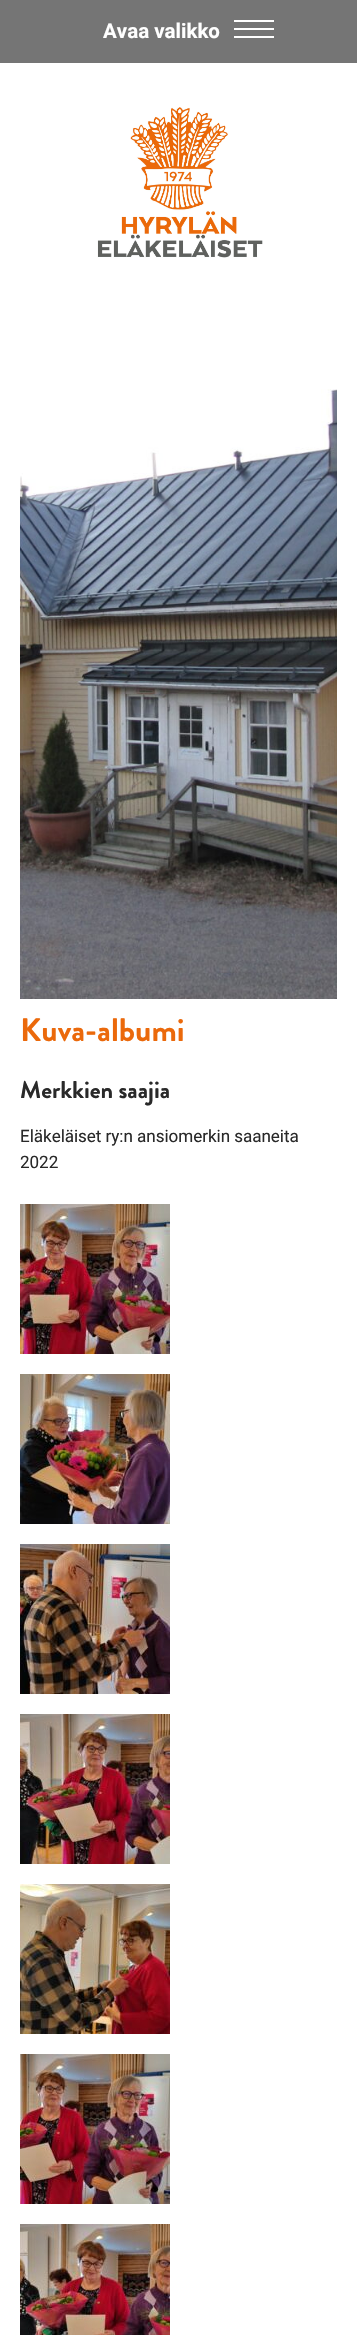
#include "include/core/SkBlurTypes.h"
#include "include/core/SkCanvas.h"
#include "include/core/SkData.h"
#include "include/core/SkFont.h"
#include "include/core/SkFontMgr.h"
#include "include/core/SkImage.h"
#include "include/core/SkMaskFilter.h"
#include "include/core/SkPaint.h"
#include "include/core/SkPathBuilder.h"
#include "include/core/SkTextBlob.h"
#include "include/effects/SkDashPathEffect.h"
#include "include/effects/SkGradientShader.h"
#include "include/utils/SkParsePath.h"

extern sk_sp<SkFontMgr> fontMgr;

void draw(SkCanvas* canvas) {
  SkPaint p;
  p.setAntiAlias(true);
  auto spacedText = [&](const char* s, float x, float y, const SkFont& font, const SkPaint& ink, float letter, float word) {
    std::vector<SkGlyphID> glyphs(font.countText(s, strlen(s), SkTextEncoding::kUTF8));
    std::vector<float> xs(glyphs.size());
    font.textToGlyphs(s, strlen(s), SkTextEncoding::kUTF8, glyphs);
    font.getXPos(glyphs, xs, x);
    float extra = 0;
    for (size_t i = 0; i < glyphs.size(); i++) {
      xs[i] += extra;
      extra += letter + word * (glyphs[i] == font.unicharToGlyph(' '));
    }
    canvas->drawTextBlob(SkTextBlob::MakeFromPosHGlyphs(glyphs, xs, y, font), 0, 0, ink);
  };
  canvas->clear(SK_ColorWHITE);
  p.setColor(SkColorSetRGB(117, 117, 117));
  canvas->drawRect(SkRect::MakeLTRB(0, 0, 357, 63), p);
  p.setColor(SK_ColorWHITE);
  canvas->drawRect(SkRect::MakeLTRB(234, 28, 274, 30), p);
  canvas->drawRect(SkRect::MakeLTRB(234, 20, 274, 22), p);
  canvas->drawRect(SkRect::MakeLTRB(234, 36, 274, 38), p);
  canvas->drawImageRect(SkImages::DeferredFromEncodedData(SkData::MakeFromFileName("images/1.png")), SkRect::MakeLTRB(97, 107, 263, 258), SkSamplingOptions());
  canvas->drawImageRect(SkImages::DeferredFromEncodedData(SkData::MakeFromFileName("images/2.png")), SkRect::MakeLTRB(20, 389, 337, 999), SkSamplingOptions());
  canvas->drawImageRect(SkImages::DeferredFromEncodedData(SkData::MakeFromFileName("images/3.png")), SkRect::MakeLTRB(20, 1204, 170, 1354), SkSamplingOptions());
  canvas->drawImageRect(SkImages::DeferredFromEncodedData(SkData::MakeFromFileName("images/4.png")), SkRect::MakeLTRB(20, 1374, 170, 1524), SkSamplingOptions());
  canvas->drawImageRect(SkImages::DeferredFromEncodedData(SkData::MakeFromFileName("images/5.png")), SkRect::MakeLTRB(20, 1544, 170, 1694), SkSamplingOptions());
  canvas->drawImageRect(SkImages::DeferredFromEncodedData(SkData::MakeFromFileName("images/6.png")), SkRect::MakeLTRB(20, 1714, 170, 1864), SkSamplingOptions());
  canvas->drawImageRect(SkImages::DeferredFromEncodedData(SkData::MakeFromFileName("images/7.png")), SkRect::MakeLTRB(20, 1884, 170, 2034), SkSamplingOptions());
  canvas->drawImageRect(SkImages::DeferredFromEncodedData(SkData::MakeFromFileName("images/8.png")), SkRect::MakeLTRB(20, 2054, 170, 2204), SkSamplingOptions());
  canvas->drawImageRect(SkImages::DeferredFromEncodedData(SkData::MakeFromFileName("images/9.png")), SkRect::MakeLTRB(20, 2224, 170, 2335), SkSamplingOptions());
  SkFont font1(fontMgr->matchFamilyStyle("Roboto", SkFontStyle::Bold()), 20.5f);
  font1.setSubpixel(true);
  canvas->drawString("Avaa valikko", 103, 38, font1, p);
  SkFont font2(fontMgr->matchFamilyStyle("Brandon Grotesque", SkFontStyle::Bold()), 32.5f);
  font2.setSubpixel(true);
  p.setColor(SkColorSetRGB(235, 105, 11));
  canvas->drawString("Kuva-albumi", 20, 1041, font2, p);
  SkFont font3(fontMgr->matchFamilyStyle("Brandon Grotesque", SkFontStyle::Bold()), 24.25f);
  font3.setSubpixel(true);
  p.setColor(SkColorSetRGB(41, 41, 41));
  canvas->drawString("Merkkien saajia", 20, 1098, font3, p);
  SkFont font4(fontMgr->matchFamilyStyle("Roboto", SkFontStyle::Normal()), 17.1f);
  font4.setSubpixel(true);
  spacedText("Eläkeläiset ry:n ansiomerkin saaneita", 20, 1142, font4, p, -0.05f, 0);
  spacedText("2022", 20, 1168, font4, p, -0.05f, 0);
}
